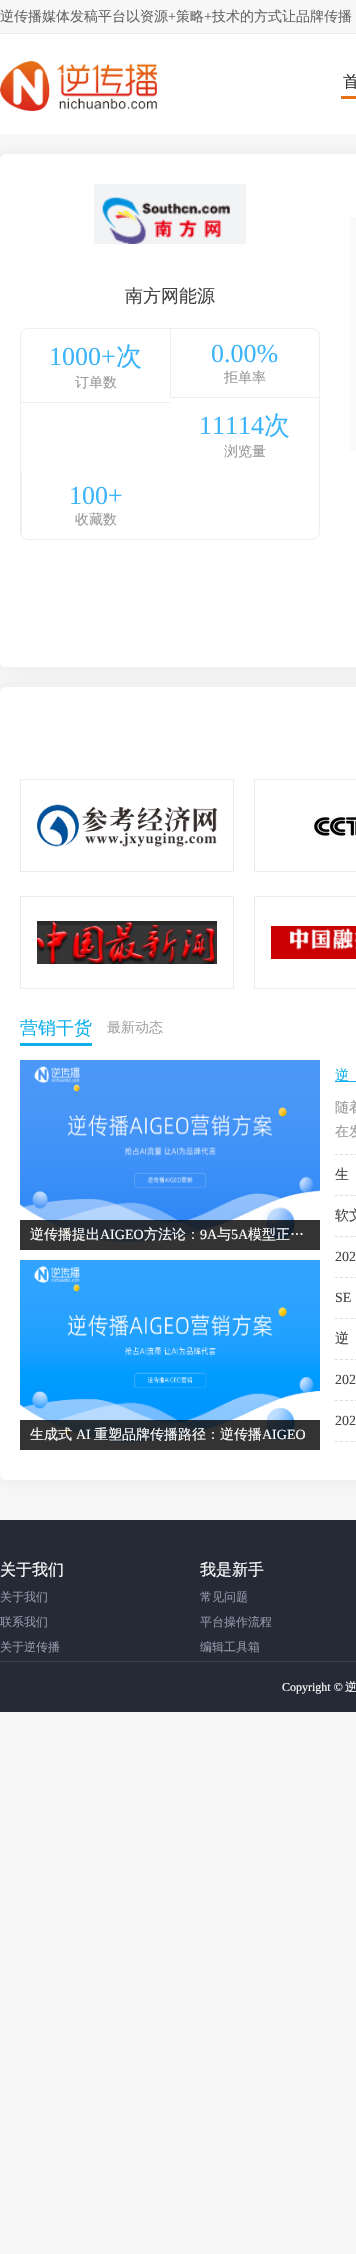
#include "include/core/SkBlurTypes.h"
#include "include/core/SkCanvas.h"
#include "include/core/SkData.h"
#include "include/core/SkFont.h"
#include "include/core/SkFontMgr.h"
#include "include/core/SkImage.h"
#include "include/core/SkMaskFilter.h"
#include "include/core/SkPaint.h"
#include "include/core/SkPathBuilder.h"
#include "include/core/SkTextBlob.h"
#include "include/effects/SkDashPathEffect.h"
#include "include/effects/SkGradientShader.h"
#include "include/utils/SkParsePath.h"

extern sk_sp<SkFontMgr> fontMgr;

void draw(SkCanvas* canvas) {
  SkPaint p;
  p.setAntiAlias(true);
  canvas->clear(SkColorSetRGB(247, 247, 247));
  p.setColor(SkColorSetRGB(236, 236, 236));
  canvas->drawRect(SkRect::MakeLTRB(0, 33, 356, 34), p);
  p.setColor(SK_ColorWHITE);
  canvas->drawRect(SkRect::MakeLTRB(0, 34, 356, 134), p);
  canvas->drawImageRect(SkImages::DeferredFromEncodedData(SkData::MakeFromFileName("images/1.png")), SkRect::MakeLTRB(0, 61, 157, 111), SkSamplingOptions());
  p.setColor(SkColorSetRGB(230, 115, 24));
  canvas->drawRect(SkRect::MakeLTRB(341, 96, 356, 99), p);
  p.setColor(SkColorSetARGB(43, 145, 155, 175));
  p.setMaskFilter(SkMaskFilter::MakeBlur(kNormal_SkBlurStyle, 8.5f));
  canvas->drawRoundRect(SkRect::MakeLTRB(0, 154, 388, 667), 6, 6, p);
  p.setMaskFilter(nullptr);
  p.setColor(SK_ColorWHITE);
  canvas->drawRoundRect(SkRect::MakeLTRB(0, 154, 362, 667), 6, 6, p);
  canvas->drawImageRect(SkImages::DeferredFromEncodedData(SkData::MakeFromFileName("images/2.png")), SkRect::MakeLTRB(94, 184, 246, 244), SkSamplingOptions());
  p.setStyle(SkPaint::kStroke_Style);
  p.setStrokeWidth(1);
  p.setColor(SkColorSetRGB(238, 238, 238));
  canvas->drawRoundRect(SkRect::MakeLTRB(20.5f, 328.5f, 319.5f, 539.5f), 7.5f, 7.5f, p);
  p.setStyle(SkPaint::kFill_Style);
  canvas->drawRect(SkRect::MakeLTRB(21, 402, 170, 403), p);
  canvas->drawRect(SkRect::MakeLTRB(170, 397, 319, 398), p);
  canvas->drawRect(SkRect::MakeLTRB(170, 329, 171, 398), p);
  canvas->save();
  canvas->clipPath(SkPathBuilder().moveTo(28, 329).lineTo(312, 329).cubicTo(316, 329, 319, 332, 319, 336).lineTo(319, 532).cubicTo(319, 536, 316, 539, 312, 539).lineTo(28, 539).cubicTo(24, 539, 21, 536, 21, 532).lineTo(21, 336).cubicTo(21, 332, 24, 329, 28, 329).close().detach(), true);
  canvas->drawRect(SkRect::MakeLTRB(21, 471, 22, 539), p);
  canvas->restore();
  p.setColor(SkColorSetRGB(250, 250, 250));
  canvas->drawRect(SkRect::MakeLTRB(350, 217, 356, 451), p);
  p.setColor(SkColorSetARGB(43, 145, 155, 175));
  p.setMaskFilter(SkMaskFilter::MakeBlur(kNormal_SkBlurStyle, 8.5f));
  canvas->drawRoundRect(SkRect::MakeLTRB(0, 687, 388, 1480), 6, 6, p);
  p.setMaskFilter(nullptr);
  p.setColor(SK_ColorWHITE);
  canvas->drawRoundRect(SkRect::MakeLTRB(0, 687, 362, 1480), 6, 6, p);
  p.setStyle(SkPaint::kStroke_Style);
  p.setColor(SkColorSetRGB(235, 235, 235));
  canvas->drawRect(SkRect::MakeLTRB(20.5f, 779.5f, 233.5f, 871.5f), p);
  canvas->drawImageRect(SkImages::DeferredFromEncodedData(SkData::MakeFromFileName("images/3.png")), SkRect::MakeLTRB(37, 804, 217, 847), SkSamplingOptions());
  canvas->drawRect(SkRect::MakeLTRB(254.5f, 779.5f, 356.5f, 871.5f), p);
  canvas->drawImageRect(SkImages::DeferredFromEncodedData(SkData::MakeFromFileName("images/4.png")), SkRect::MakeLTRB(309, 815, 356, 840), SkSamplingOptions());
  canvas->drawRect(SkRect::MakeLTRB(20.5f, 896.5f, 233.5f, 988.5f), p);
  canvas->drawImageRect(SkImages::DeferredFromEncodedData(SkData::MakeFromFileName("images/5.png")), SkRect::MakeLTRB(37, 921, 217, 964), SkSamplingOptions());
  canvas->drawRect(SkRect::MakeLTRB(254.5f, 896.5f, 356.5f, 988.5f), p);
  canvas->drawImageRect(SkImages::DeferredFromEncodedData(SkData::MakeFromFileName("images/6.png")), SkRect::MakeLTRB(271, 926, 356, 959), SkSamplingOptions());
  p.setStyle(SkPaint::kFill_Style);
  p.setColor(SkColorSetRGB(15, 175, 235));
  canvas->drawRect(SkRect::MakeLTRB(20, 1043, 92, 1046), p);
  canvas->drawImageRect(SkImages::DeferredFromEncodedData(SkData::MakeFromFileName("images/7.png")), SkRect::MakeLTRB(20, 1060, 320, 1250), SkSamplingOptions());
  p.setColor(SkColorSetARGB(204, 0, 0, 0));
  canvas->drawRect(SkRect::MakeLTRB(20, 1220, 320, 1250), p);
  canvas->drawImageRect(SkImages::DeferredFromEncodedData(SkData::MakeFromFileName("images/8.png")), SkRect::MakeLTRB(20, 1260, 320, 1450), SkSamplingOptions());
  canvas->drawRect(SkRect::MakeLTRB(20, 1420, 320, 1450), p);
  p.setStyle(SkPaint::kStroke_Style);
  p.setColor(SkColorSetRGB(221, 221, 221));
  p.setPathEffect(SkDashPathEffect::Make({{3, 2.02f}}, 0));
  canvas->drawPath(SkPathBuilder().moveTo(335, 1154.5f).lineTo(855, 1154.5f).detach(), p);
  p.setPathEffect(nullptr);
  p.setStyle(SkPaint::kFill_Style);
  p.setColor(SkColorSetRGB(15, 175, 235));
  canvas->drawRect(SkRect::MakeLTRB(335, 1081, 356, 1082), p);
  p.setStyle(SkPaint::kStroke_Style);
  p.setColor(SkColorSetRGB(221, 221, 221));
  p.setPathEffect(SkDashPathEffect::Make({{3, 2.02f}}, 0));
  canvas->drawPath(SkPathBuilder().moveTo(335, 1195.5f).lineTo(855, 1195.5f).detach(), p);
  p.setPathEffect(nullptr);
  p.setPathEffect(SkDashPathEffect::Make({{3, 2.02f}}, 0));
  canvas->drawPath(SkPathBuilder().moveTo(335, 1236.5f).lineTo(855, 1236.5f).detach(), p);
  p.setPathEffect(nullptr);
  p.setPathEffect(SkDashPathEffect::Make({{3, 2.02f}}, 0));
  canvas->drawPath(SkPathBuilder().moveTo(335, 1277.5f).lineTo(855, 1277.5f).detach(), p);
  p.setPathEffect(nullptr);
  p.setPathEffect(SkDashPathEffect::Make({{3, 2.02f}}, 0));
  canvas->drawPath(SkPathBuilder().moveTo(335, 1318.5f).lineTo(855, 1318.5f).detach(), p);
  p.setPathEffect(nullptr);
  p.setPathEffect(SkDashPathEffect::Make({{3, 2.02f}}, 0));
  canvas->drawPath(SkPathBuilder().moveTo(335, 1359.5f).lineTo(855, 1359.5f).detach(), p);
  p.setPathEffect(nullptr);
  p.setPathEffect(SkDashPathEffect::Make({{3, 2.02f}}, 0));
  canvas->drawPath(SkPathBuilder().moveTo(335, 1400.5f).lineTo(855, 1400.5f).detach(), p);
  p.setPathEffect(nullptr);
  p.setPathEffect(SkDashPathEffect::Make({{3, 2.02f}}, 0));
  canvas->drawPath(SkPathBuilder().moveTo(335, 1441.5f).lineTo(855, 1441.5f).detach(), p);
  p.setPathEffect(nullptr);
  p.setStyle(SkPaint::kFill_Style);
  p.setColor(SkColorSetRGB(37, 42, 54));
  canvas->drawRect(SkRect::MakeLTRB(0, 1520, 356, 1712), p);
  p.setColor(SkColorSetRGB(56, 62, 76));
  canvas->drawRect(SkRect::MakeLTRB(0, 1661, 356, 1662), p);
  SkFont font1(fontMgr->matchFamilyStyle("WenQuanYi Zen Hei", SkFontStyle(500, SkFontStyle::kNormal_Width, SkFontStyle::kUpright_Slant)), 14);
  font1.setSubpixel(true);
  p.setColor(SkColorSetRGB(102, 102, 102));
  canvas->drawString("逆传播媒体发稿平台以资源", 0, 21, font1, p);
  SkFont font2(fontMgr->matchFamilyStyle("Liberation Serif", SkFontStyle::Normal()), 14);
  font2.setSubpixel(true);
  canvas->drawString("+", 168, 21, font2, p);
  canvas->drawString("策略", 176, 21, font1, p);
  canvas->drawString("+", 204, 21, font2, p);
  canvas->drawString("技术的方式让品牌传播", 212, 21, font1, p);
  SkFont font3(fontMgr->matchFamilyStyle("WenQuanYi Zen Hei", SkFontStyle(500, SkFontStyle::kNormal_Width, SkFontStyle::kUpright_Slant)), 16);
  font3.setSubpixel(true);
  p.setColor(SkColorSetRGB(47, 47, 47));
  canvas->drawString("首", 343, 87, font3, p);
  SkFont font4(fontMgr->matchFamilyStyle("WenQuanYi Zen Hei", SkFontStyle(500, SkFontStyle::kNormal_Width, SkFontStyle::kUpright_Slant)), 18);
  font4.setSubpixel(true);
  p.setColor(SkColorSetRGB(68, 68, 68));
  canvas->drawString("南方网能源", 125, 302, font4, p);
  SkFont font5(fontMgr->matchFamilyStyle("Liberation Serif", SkFontStyle::Normal()), 26);
  font5.setSubpixel(true);
  p.setColor(SkColorSetRGB(60, 180, 249));
  canvas->drawString("1000+", 49, 365, font5, p);
  SkFont font6(fontMgr->matchFamilyStyle("WenQuanYi Zen Hei", SkFontStyle(500, SkFontStyle::kNormal_Width, SkFontStyle::kUpright_Slant)), 26);
  font6.setSubpixel(true);
  canvas->drawString("次", 116, 365, font6, p);
  p.setColor(SkColorSetRGB(153, 153, 153));
  canvas->drawString("订单数", 75, 387, font1, p);
  p.setColor(SkColorSetRGB(60, 180, 249));
  canvas->drawString("0.00%", 211, 362, font5, p);
  p.setColor(SkColorSetRGB(153, 153, 153));
  canvas->drawString("拒单率", 224, 382, font1, p);
  p.setColor(SkColorSetRGB(60, 180, 249));
  canvas->drawString("11114", 199, 434, font5, p);
  canvas->drawString("次", 264, 434, font6, p);
  p.setColor(SkColorSetRGB(153, 153, 153));
  canvas->drawString("浏览量", 224, 456, font1, p);
  p.setColor(SkColorSetRGB(60, 180, 249));
  canvas->drawString("100+", 69, 504, font5, p);
  p.setColor(SkColorSetRGB(153, 153, 153));
  canvas->drawString("收藏数", 75, 524, font1, p);
  p.setColor(SkColorSetRGB(15, 175, 235));
  canvas->drawString("营销干货", 20, 1034, font4, p);
  p.setColor(SkColorSetRGB(164, 164, 164));
  canvas->drawString("最新动态", 107, 1032, font1, p);
  p.setColor(SK_ColorWHITE);
  canvas->drawString("逆传播提出", 30, 1239, font1, p);
  canvas->drawString("AIGEO", 100, 1239, font2, p);
  canvas->drawString("方法论：", 144, 1239, font1, p);
  canvas->drawString("9A", 200, 1239, font2, p);
  canvas->drawString("与", 217, 1239, font1, p);
  canvas->drawString("5A", 231, 1239, font2, p);
  canvas->drawString("模型正…", 248, 1239, font1, p);
  canvas->drawString("生成式", 30, 1439, font1, p);
  canvas->drawString("AI", 76, 1439, font2, p);
  canvas->drawString("重塑品牌传播路径：逆传播", 94, 1439, font1, p);
  canvas->drawString("AIGEO", 262, 1439, font2, p);
  p.setColor(SkColorSetRGB(15, 175, 235));
  canvas->drawString("逆", 335, 1080, font1, p);
  p.setColor(SkColorSetRGB(153, 153, 153));
  canvas->drawString("随着", 335, 1112, font1, p);
  canvas->drawString("在发", 335, 1136, font1, p);
  p.setColor(SkColorSetRGB(68, 68, 68));
  canvas->drawString("生", 335, 1179, font1, p);
  canvas->drawString("软文", 335, 1220, font1, p);
  canvas->drawString("202", 335, 1261, font2, p);
  canvas->drawString("SE", 335, 1302, font2, p);
  canvas->drawString("逆", 335, 1343, font1, p);
  canvas->drawString("202", 335, 1384, font2, p);
  canvas->drawString("202", 335, 1425, font2, p);
  p.setColor(SK_ColorWHITE);
  canvas->drawString("关于我们", 0, 1575, font3, p);
  SkFont font7(fontMgr->matchFamilyStyle("WenQuanYi Zen Hei", SkFontStyle(500, SkFontStyle::kNormal_Width, SkFontStyle::kUpright_Slant)), 12);
  font7.setSubpixel(true);
  p.setColor(SkColorSetRGB(144, 151, 168));
  canvas->drawString("关于我们", 0, 1601, font7, p);
  canvas->drawString("联系我们", 0, 1626, font7, p);
  canvas->drawString("关于逆传播", 0, 1651, font7, p);
  p.setColor(SK_ColorWHITE);
  canvas->drawString("我是新手", 200, 1575, font3, p);
  p.setColor(SkColorSetRGB(144, 151, 168));
  canvas->drawString("常见问题", 200, 1601, font7, p);
  canvas->drawString("平台操作流程", 200, 1626, font7, p);
  canvas->drawString("编辑工具箱", 200, 1651, font7, p);
  SkFont font8(fontMgr->matchFamilyStyle("Liberation Serif", SkFontStyle::Normal()), 12);
  font8.setSubpixel(true);
  p.setColor(SK_ColorWHITE);
  canvas->drawString("Copyright ©", 282, 1691, font8, p);
  canvas->drawString("逆", 345, 1691, font7, p);
}
